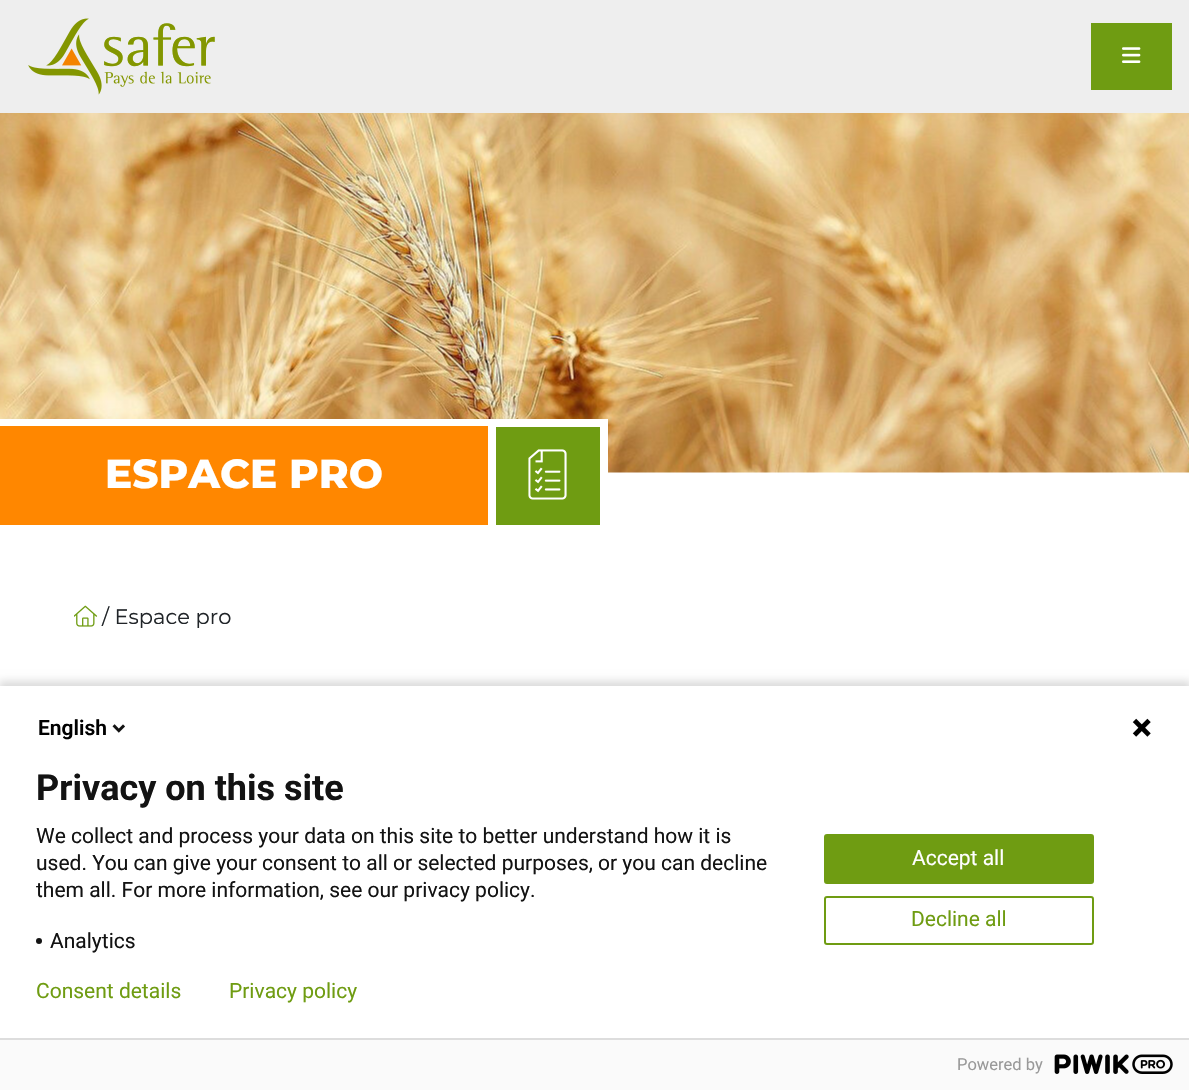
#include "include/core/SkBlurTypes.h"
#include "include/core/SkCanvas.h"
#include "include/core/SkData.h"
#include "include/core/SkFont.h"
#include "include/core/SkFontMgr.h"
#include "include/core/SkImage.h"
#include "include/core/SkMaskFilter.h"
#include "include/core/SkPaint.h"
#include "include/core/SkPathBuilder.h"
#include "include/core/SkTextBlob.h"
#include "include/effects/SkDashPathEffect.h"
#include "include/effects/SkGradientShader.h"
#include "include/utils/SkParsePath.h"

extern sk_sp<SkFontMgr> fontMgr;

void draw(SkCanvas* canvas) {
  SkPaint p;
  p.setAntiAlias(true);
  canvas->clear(SK_ColorWHITE);
  p.setColor(SkColorSetRGB(238, 238, 238));
  canvas->drawRect(SkRect::MakeLTRB(0, 0, 1189, 113), p);
  canvas->drawImageRect(SkImages::DeferredFromEncodedData(SkData::MakeFromFileName("images/1.png")), SkRect::MakeLTRB(28, 18, 215, 95), SkSamplingOptions());
  p.setColor(SkColorSetRGB(111, 156, 18));
  canvas->drawRect(SkRect::MakeLTRB(1091, 23, 1172, 90), p);
  canvas->drawImageRect(SkImages::DeferredFromEncodedData(SkData::MakeFromFileName("images/2.png")), SkRect::MakeLTRB(1122, 47, 1141, 63), SkSamplingOptions());
  canvas->drawImageRect(SkImages::DeferredFromEncodedData(SkData::MakeFromFileName("images/3.png")), SkRect::MakeLTRB(0, 113, 1189, 473), SkSamplingOptions());
  p.setColor(SkColorSetRGB(255, 135, 0));
  canvas->drawRect(SkRect::MakeLTRB(0, 426, 488, 525), p);
  p.setColor(SK_ColorWHITE);
  canvas->drawRect(SkRect::MakeLTRB(0, 419, 488, 426), p);
  p.setColor(SkColorSetRGB(111, 156, 18));
  canvas->drawRect(SkRect::MakeLTRB(492, 423, 604, 529), p);
  p.setStyle(SkPaint::kStroke_Style);
  p.setStrokeWidth(8);
  p.setColor(SK_ColorWHITE);
  canvas->drawRect(SkRect::MakeLTRB(492, 423, 604, 529), p);
  canvas->drawImageRect(SkImages::DeferredFromEncodedData(SkData::MakeFromFileName("images/4.png")), SkRect::MakeLTRB(528, 449, 567, 500), SkSamplingOptions());
  canvas->drawImageRect(SkImages::DeferredFromEncodedData(SkData::MakeFromFileName("images/5.png")), SkRect::MakeLTRB(74, 605, 98, 627), SkSamplingOptions());
  p.setStyle(SkPaint::kFill_Style);
  p.setColor(SkColorSetARGB(36, 0, 0, 0));
  p.setMaskFilter(SkMaskFilter::MakeBlur(kNormal_SkBlurStyle, 4));
  canvas->drawRect(SkRect::MakeLTRB(-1, 681, 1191, 1089), p);
  p.setMaskFilter(nullptr);
  p.setColor(SK_ColorWHITE);
  canvas->drawRect(SkRect::MakeLTRB(0, 686, 1189, 1038), p);
  canvas->drawImageRect(SkImages::DeferredFromEncodedData(SkData::MakeFromFileName("images/6.png")), SkRect::MakeLTRB(112, 724, 125, 733), SkSamplingOptions());
  canvas->drawImageRect(SkImages::DeferredFromEncodedData(SkData::MakeFromFileName("images/7.png")), SkRect::MakeLTRB(1132, 718, 1151, 737), SkSamplingOptions());
  p.setColor(SkColorSetRGB(19, 19, 19));
  canvas->drawCircle(39, 941, 3, p);
  p.setColor(SkColorSetRGB(111, 156, 18));
  canvas->drawRoundRect(SkRect::MakeLTRB(825, 835, 1093, 883), 2, 2, p);
  p.setStyle(SkPaint::kStroke_Style);
  p.setStrokeWidth(2);
  canvas->drawRoundRect(SkRect::MakeLTRB(825, 835, 1093, 883), 2, 2, p);
  canvas->drawRoundRect(SkRect::MakeLTRB(825, 897, 1093, 944), 2, 2, p);
  p.setStyle(SkPaint::kFill_Style);
  p.setColor(SkColorSetRGB(250, 250, 250));
  canvas->drawRect(SkRect::MakeLTRB(0, 1040, 1189, 1090), p);
  p.setColor(SkColorSetRGB(221, 221, 221));
  canvas->drawRect(SkRect::MakeLTRB(0, 1038, 1189, 1040), p);
  canvas->drawImageRect(SkImages::DeferredFromEncodedData(SkData::MakeFromFileName("images/8.png")), SkRect::MakeLTRB(1054, 1054, 1173, 1074), SkSamplingOptions());
  SkFont font1(fontMgr->matchFamilyStyle("Montserrat", SkFontStyle(800, SkFontStyle::kNormal_Width, SkFontStyle::kUpright_Slant)), 40.5f);
  font1.setSubpixel(true);
  p.setColor(SK_ColorWHITE);
  canvas->drawString("ESPACE PRO", 105, 488, font1, p);
  SkFont font2(fontMgr->matchFamilyStyle("Montserrat", SkFontStyle::Normal()), 21);
  font2.setSubpixel(true);
  p.setColor(SkColorSetRGB(33, 37, 41));
  canvas->drawString("/ Espace pro", 102, 624, font2, p);
  SkFont font3(fontMgr->matchFamilyStyle("Roboto", SkFontStyle(600, SkFontStyle::kNormal_Width, SkFontStyle::kUpright_Slant)), 21);
  font3.setSubpixel(true);
  p.setColor(SK_ColorBLACK);
  canvas->drawString("English", 38, 735, font3, p);
  SkFont font4(fontMgr->matchFamilyStyle("Roboto", SkFontStyle::Bold()), 36);
  font4.setSubpixel(true);
  p.setColor(SkColorSetRGB(19, 19, 19));
  canvas->drawString("Privacy on this site", 36, 800, font4, p);
  SkFont font5(fontMgr->matchFamilyStyle("Roboto", SkFontStyle::Normal()), 21);
  font5.setSubpixel(true);
  canvas->drawString("We collect and process your data on this site to better understand how it is", 36, 843, font5, p);
  canvas->drawString("used. You can give your consent to all or selected purposes, or you can decline", 36, 870, font5, p);
  canvas->drawString("them all. For more information, see our privacy policy.", 36, 897, font5, p);
  canvas->drawString("Analytics", 50, 948, font5, p);
  p.setColor(SK_ColorWHITE);
  canvas->drawString("Accept all", 912, 865, font5, p);
  p.setColor(SkColorSetRGB(111, 156, 18));
  canvas->drawString("Decline all", 911, 926, font5, p);
  canvas->drawString("Consent details", 36, 998, font5, p);
  canvas->drawString("Privacy policy", 229, 998, font5, p);
  SkFont font6(fontMgr->matchFamilyStyle("Roboto", SkFontStyle::Normal()), 16.5f);
  font6.setSubpixel(true);
  p.setColor(SkColorSetRGB(153, 153, 153));
  canvas->drawString("Powered by", 957, 1070, font6, p);
}
